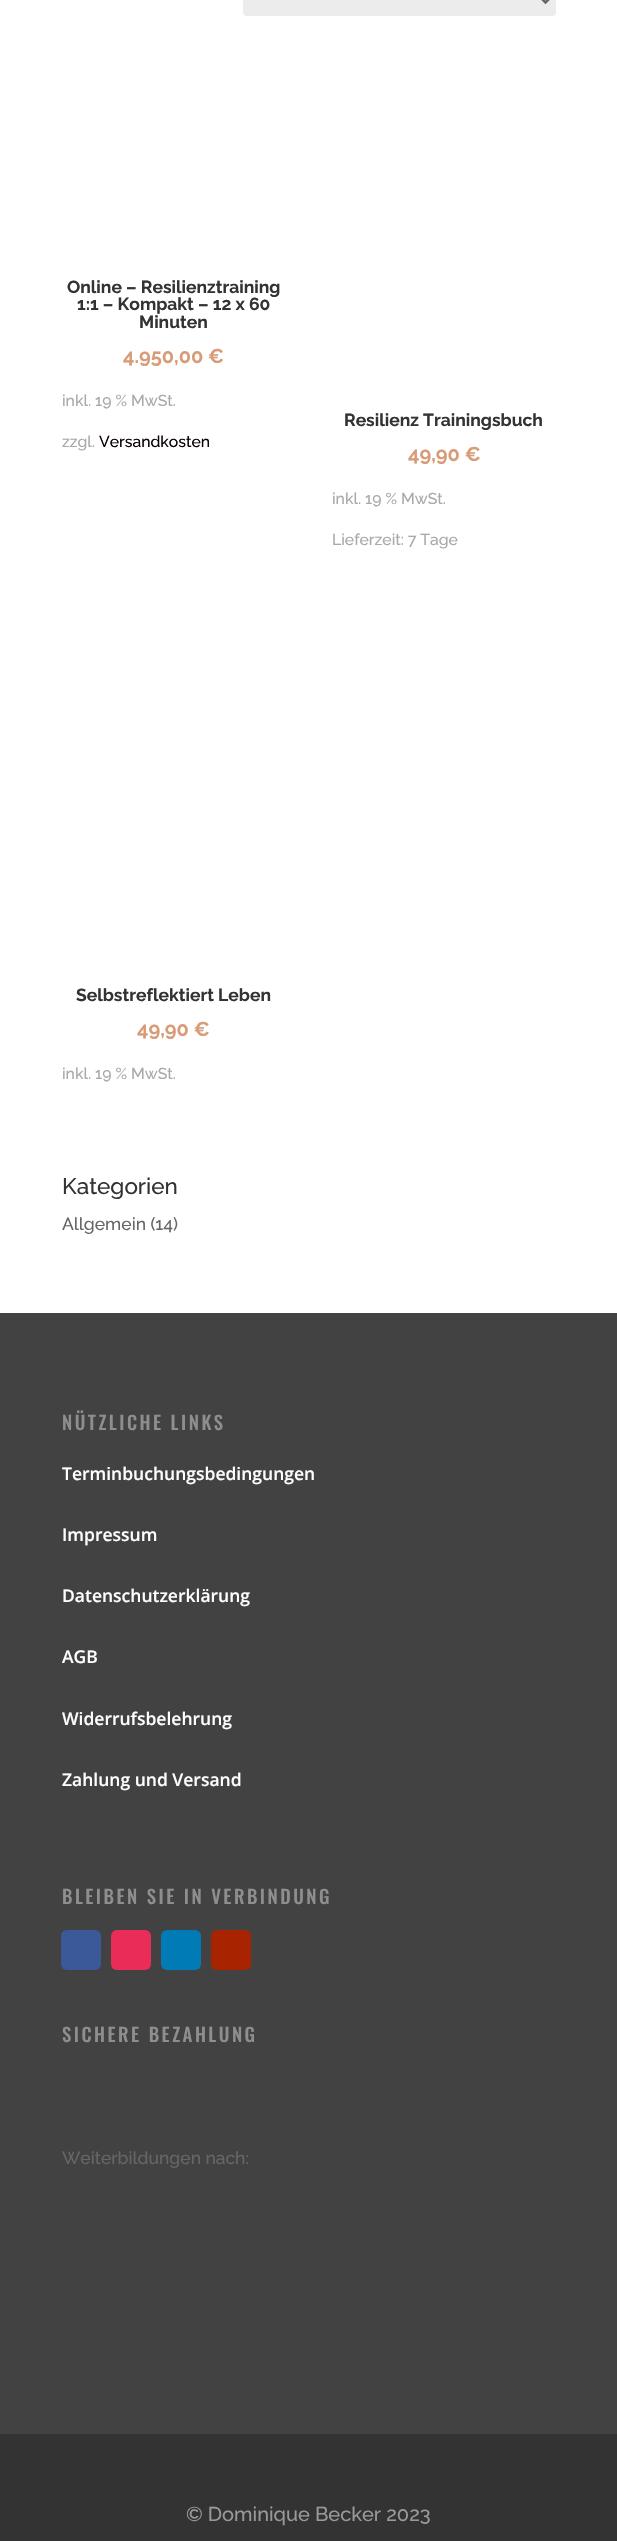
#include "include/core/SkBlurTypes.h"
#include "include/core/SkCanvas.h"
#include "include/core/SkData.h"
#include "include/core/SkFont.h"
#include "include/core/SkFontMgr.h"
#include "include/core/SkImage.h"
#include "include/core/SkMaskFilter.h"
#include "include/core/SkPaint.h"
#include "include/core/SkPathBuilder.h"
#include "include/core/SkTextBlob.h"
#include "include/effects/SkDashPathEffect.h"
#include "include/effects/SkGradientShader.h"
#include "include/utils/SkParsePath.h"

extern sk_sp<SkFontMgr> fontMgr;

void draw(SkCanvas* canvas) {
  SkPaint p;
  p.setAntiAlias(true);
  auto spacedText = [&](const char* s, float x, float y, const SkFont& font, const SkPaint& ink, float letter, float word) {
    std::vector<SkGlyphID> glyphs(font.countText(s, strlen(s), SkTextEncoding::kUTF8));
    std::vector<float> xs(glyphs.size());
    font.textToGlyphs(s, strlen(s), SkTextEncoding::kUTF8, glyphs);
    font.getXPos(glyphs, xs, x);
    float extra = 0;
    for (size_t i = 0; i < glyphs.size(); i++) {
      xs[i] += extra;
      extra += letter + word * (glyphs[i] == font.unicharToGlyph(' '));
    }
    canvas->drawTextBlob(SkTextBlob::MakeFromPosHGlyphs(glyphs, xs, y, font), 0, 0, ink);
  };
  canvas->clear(SK_ColorWHITE);
  p.setColor(SkColorSetRGB(236, 236, 236));
  canvas->drawRoundRect(SkRect::MakeLTRB(243, -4, 556, 16), 4, 4, p);
  p.setStyle(SkPaint::kStroke_Style);
  p.setStrokeWidth(2.5f);
  p.setColor(SkColorSetRGB(102, 102, 102));
  canvas->drawPath(SkPathBuilder().moveTo(540.5f, -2.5f).lineTo(545.5f, 2.5f).lineTo(550.5f, -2.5f).detach(), p);
  p.setStyle(SkPaint::kFill_Style);
  p.setColor(SkColorSetRGB(66, 66, 66));
  canvas->drawRect(SkRect::MakeLTRB(0, 1313, 617, 2434), p);
  p.setColor(SkColorSetRGB(59, 89, 152));
  canvas->drawRoundRect(SkRect::MakeLTRB(61, 1930, 101, 1970), 6, 6, p);
  p.setColor(SkColorSetRGB(234, 44, 89));
  canvas->drawRoundRect(SkRect::MakeLTRB(111, 1930, 151, 1970), 6, 6, p);
  p.setColor(SkColorSetRGB(0, 123, 182));
  canvas->drawRoundRect(SkRect::MakeLTRB(161, 1930, 201, 1970), 6, 6, p);
  p.setColor(SkColorSetRGB(168, 36, 0));
  canvas->drawRoundRect(SkRect::MakeLTRB(211, 1930, 251, 1970), 6, 6, p);
  p.setColor(SkColorSetRGB(51, 51, 51));
  canvas->drawRect(SkRect::MakeLTRB(0, 2434, 617, 2541), p);
  SkFont font1(fontMgr->matchFamilyStyle("Raleway", SkFontStyle::Bold()), 17.5f);
  font1.setSubpixel(true);
  canvas->drawString("Online – Resilienztraining", 67, 293, font1, p);
  canvas->drawString("1:1 – Kompakt – 12 x 60", 77, 310, font1, p);
  canvas->drawString("Minuten", 139, 328, font1, p);
  SkFont font2(fontMgr->matchFamilyStyle("Raleway", SkFontStyle::Bold()), 20);
  font2.setSubpixel(true);
  p.setColor(SkColorSetRGB(216, 156, 121));
  canvas->drawString("4.950,00 €", 123, 363, font2, p);
  SkFont font3(fontMgr->matchFamilyStyle("Raleway", SkFontStyle(500, SkFontStyle::kNormal_Width, SkFontStyle::kUpright_Slant)), 15.75f);
  font3.setSubpixel(true);
  p.setColor(SkColorSetRGB(169, 169, 169));
  canvas->drawString("inkl. 19 % MwSt.", 62, 406, font3, p);
  canvas->drawString("zzgl.", 62, 447, font3, p);
  p.setColor(SkColorSetRGB(10, 0, 0));
  canvas->drawString("Versandkosten", 99, 447, font3, p);
  p.setColor(SkColorSetRGB(51, 51, 51));
  canvas->drawString("Resilienz Trainingsbuch", 344, 426, font1, p);
  p.setColor(SkColorSetRGB(216, 156, 121));
  canvas->drawString("49,90 €", 408, 461, font2, p);
  p.setColor(SkColorSetRGB(169, 169, 169));
  canvas->drawString("inkl. 19 % MwSt.", 332, 504, font3, p);
  canvas->drawString("Lieferzeit: 7 Tage", 332, 545, font3, p);
  p.setColor(SkColorSetRGB(51, 51, 51));
  canvas->drawString("Selbstreflektiert Leben", 76, 1001, font1, p);
  p.setColor(SkColorSetRGB(216, 156, 121));
  canvas->drawString("49,90 €", 137, 1036, font2, p);
  p.setColor(SkColorSetRGB(169, 169, 169));
  canvas->drawString("inkl. 19 % MwSt.", 62, 1079, font3, p);
  SkFont font4(fontMgr->matchFamilyStyle("Raleway", SkFontStyle(500, SkFontStyle::kNormal_Width, SkFontStyle::kUpright_Slant)), 22.5f);
  font4.setSubpixel(true);
  p.setColor(SkColorSetRGB(51, 51, 51));
  canvas->drawString("Kategorien", 62, 1194, font4, p);
  SkFont font5(fontMgr->matchFamilyStyle("Raleway", SkFontStyle(500, SkFontStyle::kNormal_Width, SkFontStyle::kUpright_Slant)), 17.5f);
  font5.setSubpixel(true);
  p.setColor(SkColorSetRGB(102, 102, 102));
  canvas->drawString("Allgemein (14)", 62, 1230, font5, p);
  SkFont font6(fontMgr->matchFamilyStyle("Oswald", SkFontStyle(500, SkFontStyle::kNormal_Width, SkFontStyle::kUpright_Slant)), 18.75f);
  font6.setSubpixel(true);
  p.setColor(SkColorSetRGB(142, 142, 142));
  spacedText("NÜTZLICHE LINKS", 62, 1430, font6, p, 2.5f, 0);
  SkFont font7(fontMgr->matchFamilyStyle("Open Sans", SkFontStyle(600, SkFontStyle::kNormal_Width, SkFontStyle::kUpright_Slant)), 17.5f);
  font7.setSubpixel(true);
  p.setColor(SK_ColorWHITE);
  canvas->drawString("Terminbuchungsbedingungen", 62, 1480, font7, p);
  canvas->drawString("Impressum", 62, 1541, font7, p);
  canvas->drawString("Datenschutzerklärung", 62, 1602, font7, p);
  canvas->drawString("AGB", 62, 1663, font7, p);
  canvas->drawString("Widerrufsbelehrung", 62, 1725, font7, p);
  canvas->drawString("Zahlung und Versand", 62, 1786, font7, p);
  p.setColor(SkColorSetRGB(142, 142, 142));
  spacedText("BLEIBEN SIE IN VERBINDUNG", 62, 1904, font6, p, 2.5f, 0);
  spacedText("SICHERE BEZAHLUNG", 62, 2042, font6, p, 2.5f, 0);
  p.setColor(SkColorSetRGB(102, 102, 102));
  canvas->drawString("Weiterbildungen nach:", 62, 2164, font5, p);
  SkFont font8(fontMgr->matchFamilyStyle("Raleway", SkFontStyle(500, SkFontStyle::kNormal_Width, SkFontStyle::kUpright_Slant)), 20);
  font8.setSubpixel(true);
  p.setColor(SkColorSetRGB(153, 153, 153));
  canvas->drawString("© Dominique Becker 2023", 186, 2521, font8, p);
}
